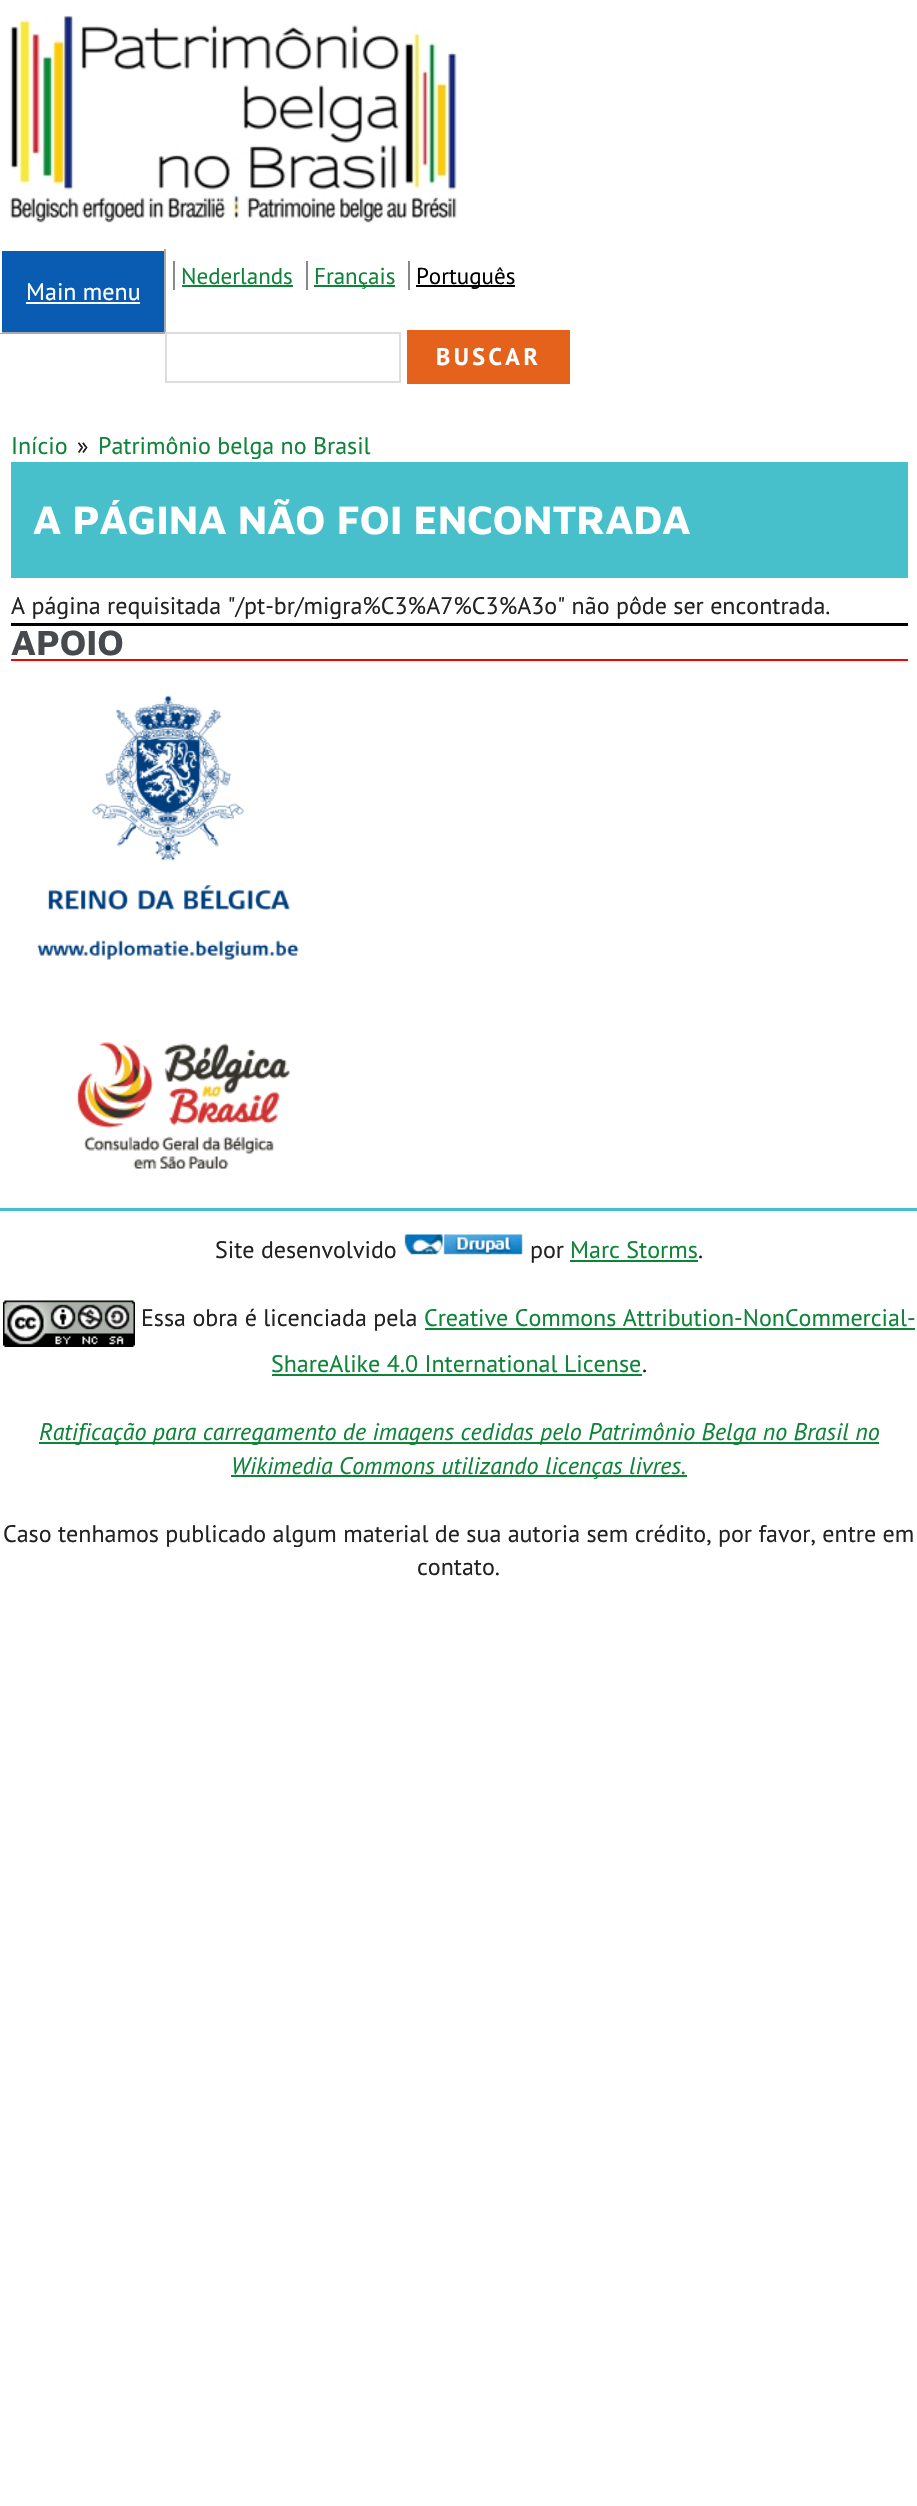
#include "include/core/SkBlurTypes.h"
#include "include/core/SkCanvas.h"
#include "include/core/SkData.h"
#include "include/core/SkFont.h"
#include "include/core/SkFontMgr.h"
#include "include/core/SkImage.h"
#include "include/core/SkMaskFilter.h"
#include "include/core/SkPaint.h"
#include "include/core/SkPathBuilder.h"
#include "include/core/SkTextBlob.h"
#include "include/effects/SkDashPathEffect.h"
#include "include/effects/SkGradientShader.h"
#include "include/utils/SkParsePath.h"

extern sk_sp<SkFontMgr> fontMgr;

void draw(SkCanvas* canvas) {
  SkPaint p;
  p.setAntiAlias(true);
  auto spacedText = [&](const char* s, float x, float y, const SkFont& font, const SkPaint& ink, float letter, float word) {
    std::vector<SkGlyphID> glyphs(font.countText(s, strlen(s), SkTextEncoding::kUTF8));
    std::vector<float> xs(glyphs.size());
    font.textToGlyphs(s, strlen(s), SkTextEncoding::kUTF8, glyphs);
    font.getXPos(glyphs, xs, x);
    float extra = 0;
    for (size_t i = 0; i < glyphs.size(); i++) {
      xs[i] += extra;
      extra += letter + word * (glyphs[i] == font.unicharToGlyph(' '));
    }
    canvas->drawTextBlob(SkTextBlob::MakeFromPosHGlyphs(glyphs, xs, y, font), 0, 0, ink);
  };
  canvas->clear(SK_ColorWHITE);
  canvas->drawImageRect(SkImages::DeferredFromEncodedData(SkData::MakeFromFileName("images/1.png")), SkRect::MakeLTRB(10, 15, 457, 223), SkSamplingOptions());
  p.setColor(SkColorSetRGB(136, 136, 136));
  canvas->drawRect(SkRect::MakeLTRB(173, 261, 175, 290), p);
  p.setColor(SkColorSetRGB(14, 132, 56));
  canvas->drawRect(SkRect::MakeLTRB(182, 285, 293, 287), p);
  p.setColor(SkColorSetRGB(136, 136, 136));
  canvas->drawRect(SkRect::MakeLTRB(306, 261, 308, 290), p);
  p.setColor(SkColorSetRGB(14, 132, 56));
  canvas->drawRect(SkRect::MakeLTRB(314, 285, 395, 287), p);
  p.setColor(SkColorSetRGB(136, 136, 136));
  canvas->drawRect(SkRect::MakeLTRB(408, 261, 410, 290), p);
  p.setColor(SK_ColorBLACK);
  canvas->drawRect(SkRect::MakeLTRB(416, 285, 515, 287), p);
  p.setColor(SkColorSetRGB(9, 92, 177));
  canvas->drawRect(SkRect::MakeLTRB(2, 251, 164, 332), p);
  p.setColor(SkColorSetRGB(170, 170, 170));
  canvas->drawRect(SkRect::MakeLTRB(164, 249, 166, 333), p);
  canvas->drawRect(SkRect::MakeLTRB(0, 332, 165, 334), p);
  p.setColor(SK_ColorWHITE);
  canvas->drawRect(SkRect::MakeLTRB(0, 332, 2, 333), p);
  canvas->drawRect(SkRect::MakeLTRB(26, 302, 140, 304), p);
  p.setStyle(SkPaint::kStroke_Style);
  p.setStrokeWidth(2);
  p.setColor(SkColorSetRGB(221, 221, 221));
  canvas->drawRect(SkRect::MakeLTRB(166, 333, 400, 382), p);
  p.setStyle(SkPaint::kFill_Style);
  p.setColor(SkColorSetRGB(228, 98, 28));
  canvas->drawRect(SkRect::MakeLTRB(407, 330, 570, 384), p);
  p.setColor(SkColorSetRGB(71, 192, 203));
  canvas->drawRect(SkRect::MakeLTRB(11, 462, 908, 578), p);
  p.setColor(SK_ColorBLACK);
  canvas->drawRect(SkRect::MakeLTRB(11, 623, 908, 626), p);
  p.setColor(SkColorSetRGB(255, 0, 0));
  canvas->drawRect(SkRect::MakeLTRB(11, 659, 908, 661), p);
  canvas->drawImageRect(SkImages::DeferredFromEncodedData(SkData::MakeFromFileName("images/2.png")), SkRect::MakeLTRB(37, 695, 299, 960), SkSamplingOptions());
  canvas->drawImageRect(SkImages::DeferredFromEncodedData(SkData::MakeFromFileName("images/3.png")), SkRect::MakeLTRB(77, 1042, 290, 1169), SkSamplingOptions());
  p.setColor(SkColorSetRGB(71, 192, 203));
  canvas->drawRect(SkRect::MakeLTRB(0, 1208, 917, 1211), p);
  canvas->drawImageRect(SkImages::DeferredFromEncodedData(SkData::MakeFromFileName("images/4.png")), SkRect::MakeLTRB(404, 1234, 523, 1256), SkSamplingOptions());
  p.setColor(SkColorSetRGB(14, 132, 56));
  canvas->drawRect(SkRect::MakeLTRB(570, 1260, 698, 1262), p);
  canvas->drawImageRect(SkImages::DeferredFromEncodedData(SkData::MakeFromFileName("images/5.png")), SkRect::MakeLTRB(3, 1300, 135, 1347), SkSamplingOptions());
  canvas->drawRect(SkRect::MakeLTRB(425, 1328, 915, 1330), p);
  canvas->drawRect(SkRect::MakeLTRB(272, 1374, 642, 1376), p);
  canvas->drawRect(SkRect::MakeLTRB(39, 1442, 879, 1444), p);
  canvas->drawRect(SkRect::MakeLTRB(231, 1475, 687, 1477), p);
  SkFont font1(fontMgr->matchFamilyStyle("PT Sans", SkFontStyle::Normal()), 23);
  font1.setSubpixel(true);
  canvas->drawString("Nederlands", 181, 284, font1, p);
  canvas->drawString("Français", 314, 284, font1, p);
  p.setColor(SK_ColorBLACK);
  canvas->drawString("Português", 416, 284, font1, p);
  SkFont font2(fontMgr->matchFamilyStyle("PT Sans", SkFontStyle::Normal()), 24);
  font2.setSubpixel(true);
  p.setColor(SK_ColorWHITE);
  canvas->drawString("Main menu", 26, 300, font2, p);
  SkFont font3(fontMgr->matchFamilyStyle("PT Sans", SkFontStyle::Bold()), 24);
  font3.setSubpixel(true);
  spacedText("BUSCAR", 436, 365, font3, p, 3.5f, 0);
  p.setColor(SkColorSetRGB(14, 132, 56));
  canvas->drawString("Início", 11, 454, font2, p);
  p.setColor(SkColorSetRGB(34, 34, 34));
  canvas->drawString("»", 77, 454, font2, p);
  p.setColor(SkColorSetRGB(14, 132, 56));
  canvas->drawString("Patrimônio belga no Brasil", 98, 454, font2, p);
  SkFont font4(fontMgr->matchFamilyStyle("Maven Pro", SkFontStyle::Bold()), 40.75f);
  font4.setSubpixel(true);
  p.setColor(SK_ColorWHITE);
  canvas->drawString("A PÁGINA NÃO FOI ENCONTRADA", 33, 534, font4, p);
  p.setColor(SkColorSetRGB(34, 34, 34));
  canvas->drawString("A página requisitada \"/pt-br/migra%C3%A7%C3%A3o\" não pôde ser encontrada.", 11, 614, font2, p);
  SkFont font5(fontMgr->matchFamilyStyle("Maven Pro", SkFontStyle::Bold()), 36);
  font5.setSubpixel(true);
  p.setColor(SkColorSetRGB(70, 74, 78));
  canvas->drawString("APOIO", 11, 655, font5, p);
  p.setColor(SkColorSetRGB(34, 34, 34));
  canvas->drawString("Site desenvolvido", 215, 1258, font2, p);
  canvas->drawString("por", 530, 1258, font2, p);
  p.setColor(SkColorSetRGB(14, 132, 56));
  canvas->drawString("Marc Storms", 570, 1258, font2, p);
  p.setColor(SkColorSetRGB(34, 34, 34));
  canvas->drawString(".", 698, 1258, font2, p);
  canvas->drawString("Essa obra é licenciada pela", 141, 1326, font2, p);
  p.setColor(SkColorSetRGB(14, 132, 56));
  canvas->drawString("Creative Commons Attribution-NonCommercial-", 424, 1326, font2, p);
  canvas->drawString("ShareAlike 4.0 International License", 271, 1372, font2, p);
  p.setColor(SkColorSetRGB(34, 34, 34));
  canvas->drawString(".", 642, 1372, font2, p);
  SkFont font6(fontMgr->matchFamilyStyle("PT Sans", SkFontStyle::Italic()), 24);
  font6.setSubpixel(true);
  p.setColor(SkColorSetRGB(14, 132, 56));
  canvas->drawString("Ratificação para carregamento de imagens cedidas pelo Patrimônio Belga no Brasil no", 39, 1440, font6, p);
  canvas->drawString("Wikimedia Commons utilizando licenças livres.", 231, 1474, font6, p);
  p.setColor(SkColorSetRGB(34, 34, 34));
  canvas->drawString("Caso tenhamos publicado algum material de sua autoria sem crédito, por favor, entre em", 3, 1542, font2, p);
  canvas->drawString("contato.", 417, 1575, font2, p);
}
